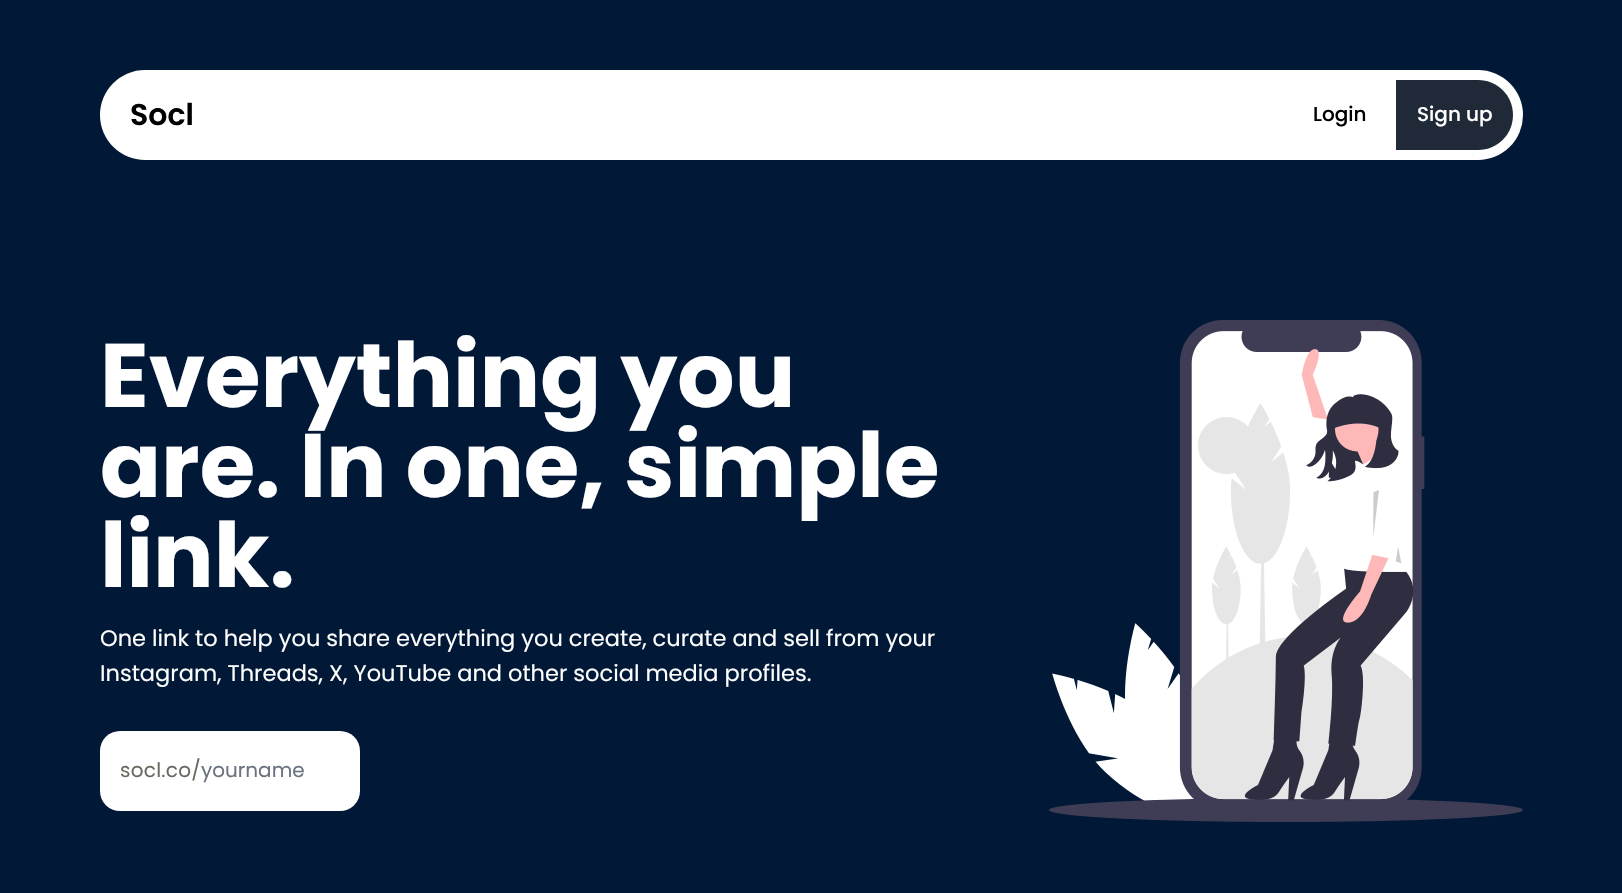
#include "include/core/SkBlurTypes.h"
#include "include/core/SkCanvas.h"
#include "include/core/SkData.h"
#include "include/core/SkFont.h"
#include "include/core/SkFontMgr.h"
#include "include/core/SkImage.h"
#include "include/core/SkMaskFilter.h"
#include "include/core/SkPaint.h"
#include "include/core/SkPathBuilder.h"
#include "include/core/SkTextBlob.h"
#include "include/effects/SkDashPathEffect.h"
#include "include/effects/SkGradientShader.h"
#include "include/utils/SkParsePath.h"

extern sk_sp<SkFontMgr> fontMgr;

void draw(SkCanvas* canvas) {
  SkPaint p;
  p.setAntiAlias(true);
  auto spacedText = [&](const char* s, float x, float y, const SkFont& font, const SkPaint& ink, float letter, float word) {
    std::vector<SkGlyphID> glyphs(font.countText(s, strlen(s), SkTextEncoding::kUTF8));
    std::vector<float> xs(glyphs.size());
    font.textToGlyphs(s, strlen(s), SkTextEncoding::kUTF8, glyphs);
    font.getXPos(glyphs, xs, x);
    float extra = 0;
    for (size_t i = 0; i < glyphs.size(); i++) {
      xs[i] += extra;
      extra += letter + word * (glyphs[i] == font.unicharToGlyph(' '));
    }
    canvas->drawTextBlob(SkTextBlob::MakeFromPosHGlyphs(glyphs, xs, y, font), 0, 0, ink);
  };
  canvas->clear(SkColorSetRGB(1, 25, 54));
  p.setColor(SK_ColorWHITE);
  canvas->drawRoundRect(SkRect::MakeLTRB(100, 70, 1523, 160), 45, 45, p);
  p.setColor(SkColorSetRGB(31, 41, 55));
  canvas->drawPath(SkPathBuilder().moveTo(1396, 80).lineTo(1478, 80).cubicTo(1497.5f, 80, 1513, 95.5f, 1513, 115).cubicTo(1513, 134.5f, 1497.5f, 150, 1478, 150).lineTo(1396, 150).close().detach(), p);
  p.setColor(SK_ColorWHITE);
  canvas->drawRoundRect(SkRect::MakeLTRB(100, 731, 360, 811), 20, 20, p);
  canvas->drawImageRect(SkImages::DeferredFromEncodedData(SkData::MakeFromFileName("images/1.png")), SkRect::MakeLTRB(1049, 320, 1523, 822), SkSamplingOptions());
  SkFont font1(fontMgr->matchFamilyStyle("Poppins", SkFontStyle(600, SkFontStyle::kNormal_Width, SkFontStyle::kUpright_Slant)), 30);
  font1.setSubpixel(true);
  p.setColor(SK_ColorBLACK);
  canvas->drawString("Socl", 130, 125, font1, p);
  SkFont font2(fontMgr->matchFamilyStyle("Poppins", SkFontStyle(500, SkFontStyle::kNormal_Width, SkFontStyle::kUpright_Slant)), 20);
  font2.setSubpixel(true);
  canvas->drawString("Login", 1313, 121, font2, p);
  p.setColor(SK_ColorWHITE);
  canvas->drawString("Sign up", 1417, 121, font2, p);
  SkFont font3(fontMgr->matchFamilyStyle("Poppins", SkFontStyle::Bold()), 90);
  font3.setSubpixel(true);
  canvas->drawString("Everything you", 100, 407, font3, p);
  canvas->drawString("are. In one, simple", 100, 497, font3, p);
  canvas->drawString("link.", 100, 587, font3, p);
  SkFont font4(fontMgr->matchFamilyStyle("Poppins", SkFontStyle::Normal()), 22.5f);
  font4.setSubpixel(true);
  canvas->drawString("One link to help you share everything you create, curate and sell from your", 100, 646, font4, p);
  canvas->drawString("Instagram, Threads, X, YouTube and other social media profiles.", 100, 681, font4, p);
  SkFont font5(fontMgr->matchFamilyStyle("Poppins", SkFontStyle::Normal()), 20);
  font5.setSubpixel(true);
  p.setColor(SkColorSetRGB(103, 107, 95));
  spacedText("socl.co/", 120, 777, font5, p, 0.25f, 0);
  p.setColor(SkColorSetRGB(107, 114, 128));
  canvas->drawString("yourname", 201, 777, font5, p);
}
